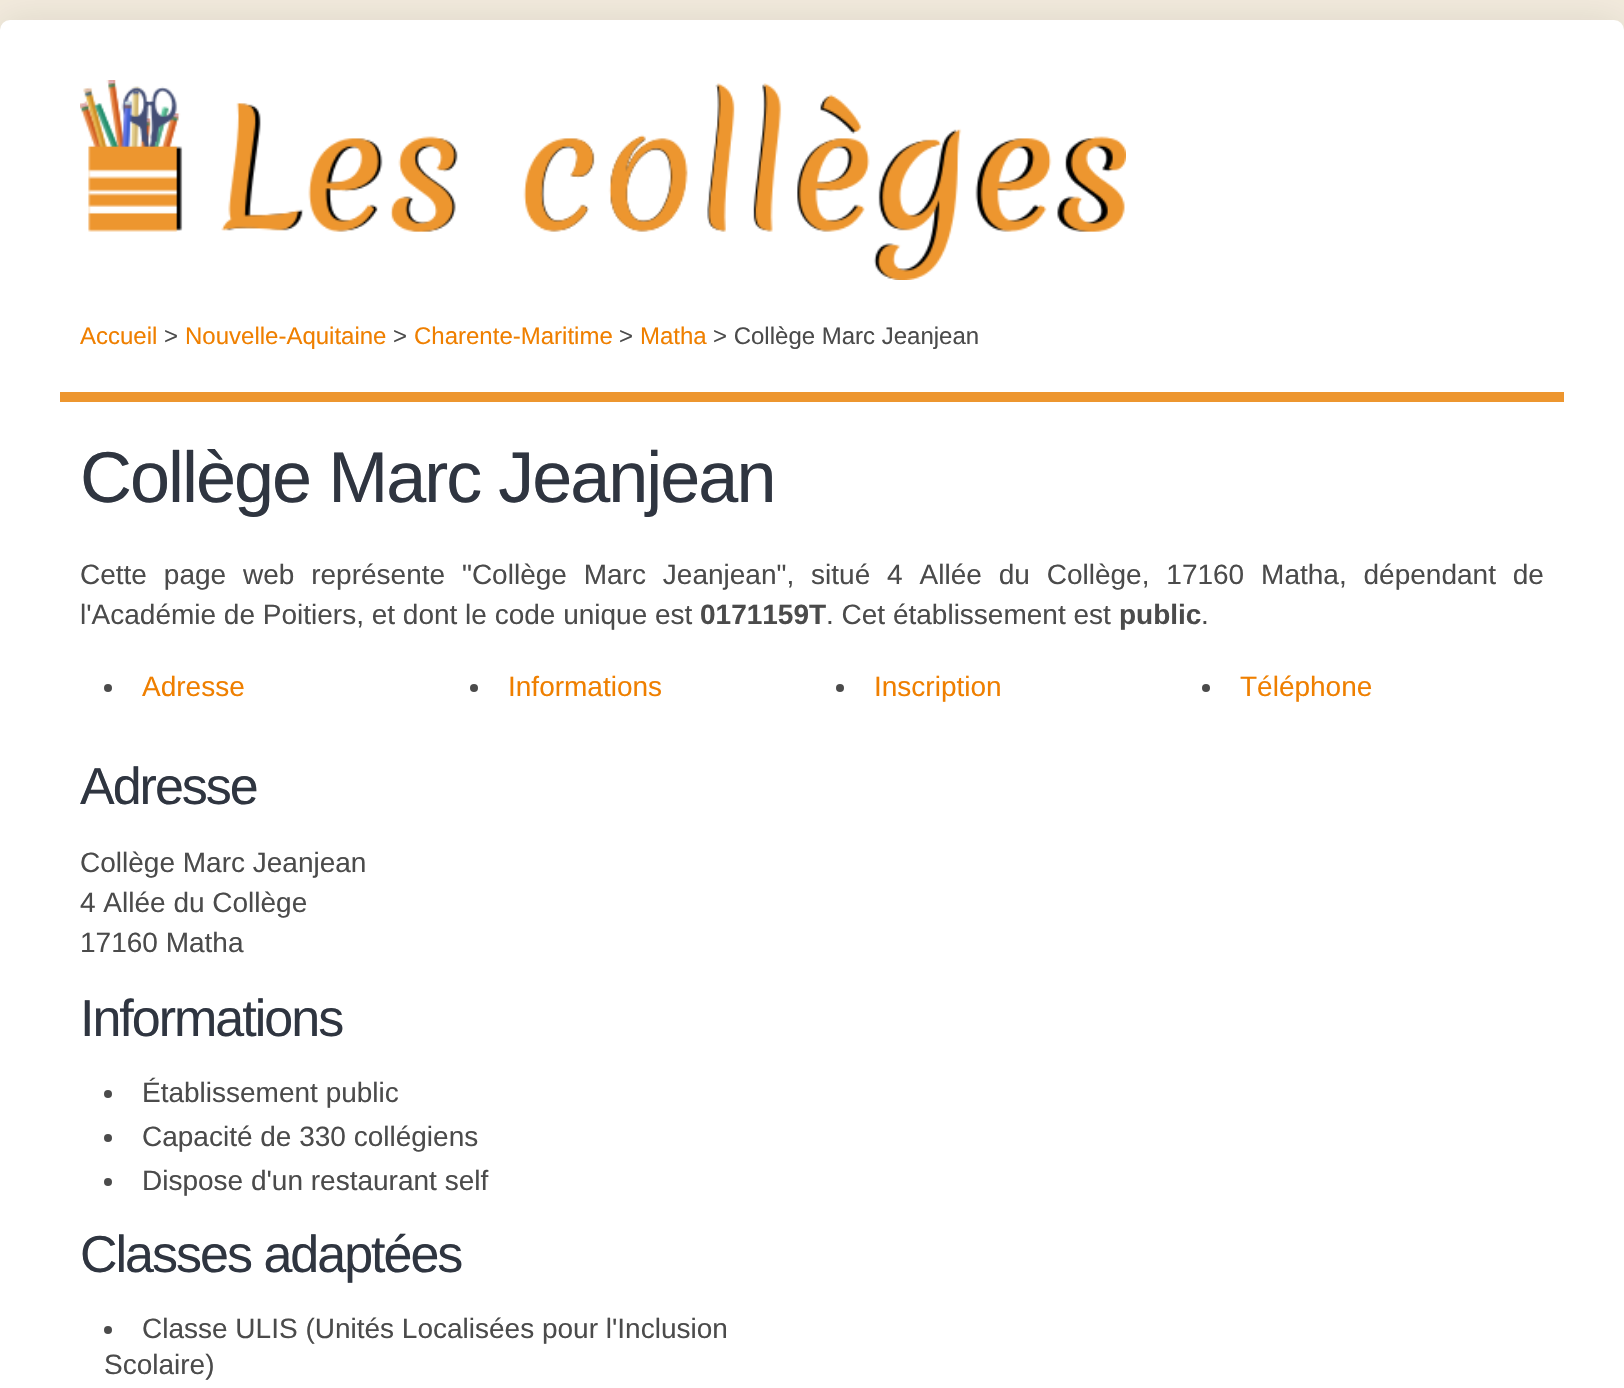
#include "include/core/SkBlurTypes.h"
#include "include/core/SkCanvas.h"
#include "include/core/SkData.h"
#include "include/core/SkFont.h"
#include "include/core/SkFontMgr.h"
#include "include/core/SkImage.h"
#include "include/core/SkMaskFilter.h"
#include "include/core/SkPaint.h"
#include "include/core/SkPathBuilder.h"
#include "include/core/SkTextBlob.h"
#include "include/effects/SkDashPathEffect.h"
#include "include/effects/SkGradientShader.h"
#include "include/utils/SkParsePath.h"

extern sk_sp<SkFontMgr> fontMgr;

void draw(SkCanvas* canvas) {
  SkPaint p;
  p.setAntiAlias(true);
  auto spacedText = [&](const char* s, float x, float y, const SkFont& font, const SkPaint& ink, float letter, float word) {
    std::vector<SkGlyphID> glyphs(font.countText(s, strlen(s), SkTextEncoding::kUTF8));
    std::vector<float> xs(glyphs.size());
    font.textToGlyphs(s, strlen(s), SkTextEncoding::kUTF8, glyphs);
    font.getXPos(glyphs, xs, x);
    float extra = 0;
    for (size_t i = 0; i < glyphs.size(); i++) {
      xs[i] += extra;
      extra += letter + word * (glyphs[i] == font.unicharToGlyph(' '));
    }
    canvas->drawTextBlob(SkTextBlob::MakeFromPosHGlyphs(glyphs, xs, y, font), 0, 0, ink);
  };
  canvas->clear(SkColorSetRGB(244, 236, 222));
  p.setColor(SkColorSetARGB(26, 0, 0, 0));
  p.setMaskFilter(SkMaskFilter::MakeBlur(kNormal_SkBlurStyle, 20));
  canvas->drawRoundRect(SkRect::MakeLTRB(0, 20, 1624, 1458), 10, 10, p);
  p.setMaskFilter(nullptr);
  p.setColor(SK_ColorWHITE);
  canvas->drawRoundRect(SkRect::MakeLTRB(0, 20, 1624, 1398), 10, 10, p);
  p.setColor(SkColorSetRGB(237, 150, 47));
  canvas->drawRect(SkRect::MakeLTRB(60, 392, 1564, 402), p);
  canvas->drawImageRect(SkImages::DeferredFromEncodedData(SkData::MakeFromFileName("images/1.png")), SkRect::MakeLTRB(80, 80, 1126, 280), SkSamplingOptions());
  p.setColor(SkColorSetRGB(75, 75, 75));
  canvas->drawCircle(108, 688, 4, p);
  canvas->drawCircle(474, 688, 4, p);
  canvas->drawCircle(840, 688, 4, p);
  canvas->drawCircle(1206, 688, 4, p);
  canvas->drawCircle(108, 1094, 4, p);
  canvas->drawCircle(108, 1138, 4, p);
  canvas->drawCircle(108, 1182, 4, p);
  canvas->drawCircle(108, 1330, 4, p);
  SkFont font1(fontMgr->matchFamilyStyle("Liberation Sans", SkFontStyle::Normal()), 24);
  font1.setSubpixel(true);
  p.setColor(SkColorSetRGB(239, 127, 0));
  canvas->drawString("Accueil", 80, 344, font1, p);
  p.setColor(SkColorSetRGB(75, 75, 75));
  canvas->drawString(">", 164, 344, font1, p);
  p.setColor(SkColorSetRGB(239, 127, 0));
  canvas->drawString("Nouvelle-Aquitaine", 185, 344, font1, p);
  p.setColor(SkColorSetRGB(75, 75, 75));
  canvas->drawString(">", 393, 344, font1, p);
  p.setColor(SkColorSetRGB(239, 127, 0));
  canvas->drawString("Charente-Maritime", 414, 344, font1, p);
  p.setColor(SkColorSetRGB(75, 75, 75));
  canvas->drawString(">", 619, 344, font1, p);
  p.setColor(SkColorSetRGB(239, 127, 0));
  canvas->drawString("Matha", 640, 344, font1, p);
  p.setColor(SkColorSetRGB(75, 75, 75));
  canvas->drawString("> Collège Marc Jeanjean", 713, 344, font1, p);
  SkFont font2(fontMgr->matchFamilyStyle("Liberation Sans", SkFontStyle::Normal()), 72);
  font2.setSubpixel(true);
  p.setColor(SkColorSetRGB(47, 53, 64));
  spacedText("Collège Marc Jeanjean", 80, 502, font2, p, -2, 0);
  SkFont font3(fontMgr->matchFamilyStyle("Liberation Sans", SkFontStyle::Normal()), 28);
  font3.setSubpixel(true);
  p.setColor(SkColorSetRGB(75, 75, 75));
  spacedText("Cette page web représente \"Collège Marc Jeanjean\", situé 4 Allée du Collège, 17160 Matha, dépendant de", 80, 584, font3, p, 0, 9.1f);
  canvas->drawString("l'Académie de Poitiers, et dont le code unique est", 80, 624, font3, p);
  SkFont font4(fontMgr->matchFamilyStyle("Liberation Sans", SkFontStyle::Bold()), 28);
  font4.setSubpixel(true);
  canvas->drawString("0171159T", 700, 624, font4, p);
  canvas->drawString(". Cet établissement est", 826, 624, font3, p);
  canvas->drawString("public", 1119, 624, font4, p);
  canvas->drawString(".", 1201, 624, font3, p);
  p.setColor(SkColorSetRGB(239, 127, 0));
  canvas->drawString("Adresse", 142, 696, font3, p);
  canvas->drawString("Informations", 508, 696, font3, p);
  canvas->drawString("Inscription", 874, 696, font3, p);
  canvas->drawString("Téléphone", 1240, 696, font3, p);
  SkFont font5(fontMgr->matchFamilyStyle("Liberation Sans", SkFontStyle::Normal()), 52);
  font5.setSubpixel(true);
  p.setColor(SkColorSetRGB(47, 53, 64));
  spacedText("Adresse", 80, 804, font5, p, -2, 0);
  p.setColor(SkColorSetRGB(75, 75, 75));
  canvas->drawString("Collège Marc Jeanjean", 80, 872, font3, p);
  canvas->drawString("4 Allée du Collège", 80, 912, font3, p);
  canvas->drawString("17160 Matha", 80, 952, font3, p);
  p.setColor(SkColorSetRGB(47, 53, 64));
  spacedText("Informations", 80, 1036, font5, p, -2, 0);
  p.setColor(SkColorSetRGB(75, 75, 75));
  canvas->drawString("Établissement public", 142, 1102, font3, p);
  canvas->drawString("Capacité de 330 collégiens", 142, 1146, font3, p);
  canvas->drawString("Dispose d'un restaurant self", 142, 1190, font3, p);
  p.setColor(SkColorSetRGB(47, 53, 64));
  spacedText("Classes adaptées", 80, 1272, font5, p, -2, 0);
  p.setColor(SkColorSetRGB(75, 75, 75));
  canvas->drawString("Classe ULIS (Unités Localisées pour l'Inclusion", 142, 1338, font3, p);
  canvas->drawString("Scolaire)", 104, 1374, font3, p);
}
